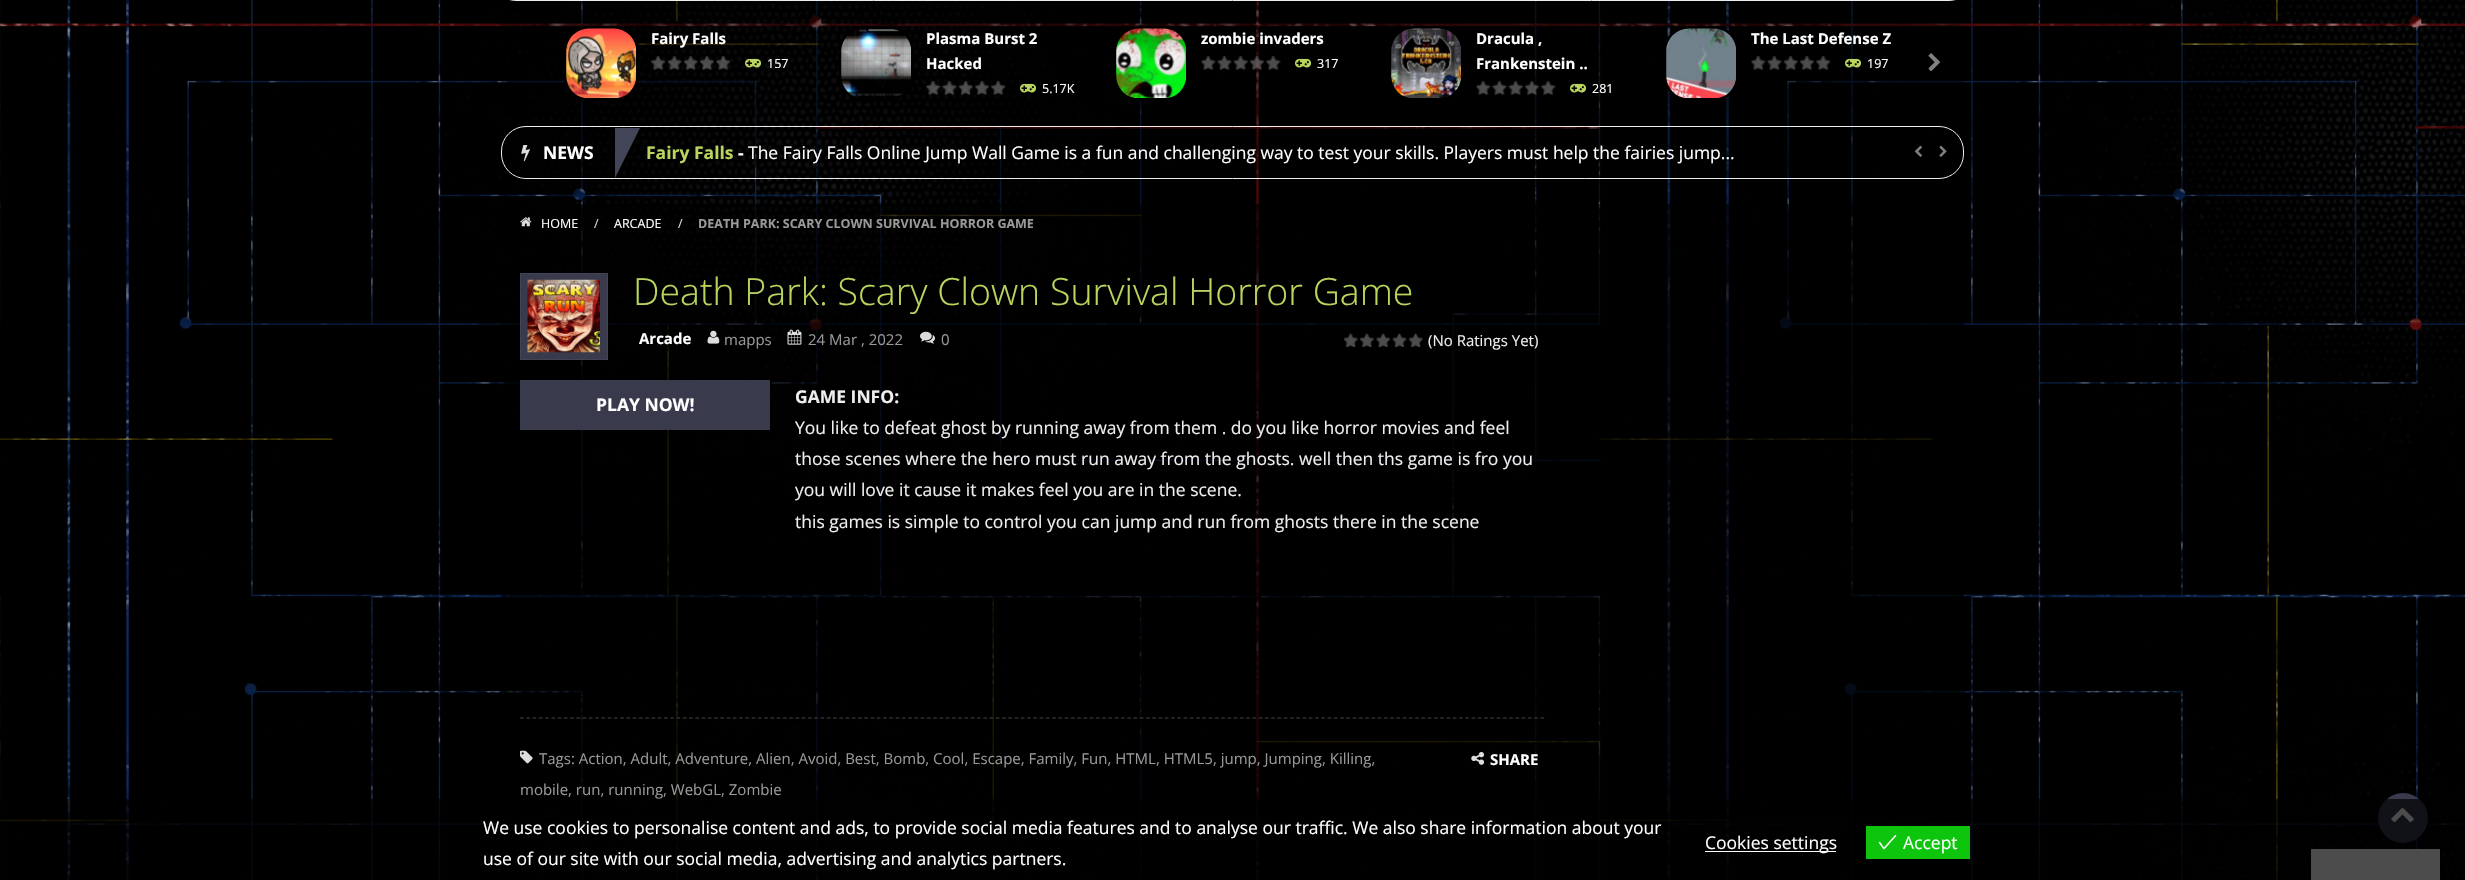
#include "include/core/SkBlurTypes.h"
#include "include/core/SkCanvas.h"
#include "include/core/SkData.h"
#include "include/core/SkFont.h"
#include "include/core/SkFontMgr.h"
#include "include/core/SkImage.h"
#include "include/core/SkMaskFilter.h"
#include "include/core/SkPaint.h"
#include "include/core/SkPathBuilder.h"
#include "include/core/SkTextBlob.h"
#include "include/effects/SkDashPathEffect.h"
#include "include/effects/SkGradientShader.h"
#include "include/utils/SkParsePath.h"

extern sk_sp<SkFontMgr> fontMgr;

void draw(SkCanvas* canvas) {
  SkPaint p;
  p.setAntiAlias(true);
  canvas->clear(SK_ColorWHITE);
  canvas->drawImageRect(SkImages::DeferredFromEncodedData(SkData::MakeFromFileName("images/1.png")), SkRect::MakeLTRB(0, 0, 2465, 880), SkSamplingOptions());
  p.setStyle(SkPaint::kStroke_Style);
  p.setStrokeWidth(1);
  p.setColor(SkColorSetRGB(238, 238, 238));
  canvas->drawRoundRect(SkRect::MakeLTRB(501.5f, -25.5f, 1963.5f, 0.5f), 24.5f, 24.5f, p);
  p.setStyle(SkPaint::kFill_Style);
  p.setColor(SkColorSetARGB(89, 0, 0, 0));
  canvas->drawRect(SkRect::MakeLTRB(501, 1, 1964, 126), p);
  p.setColor(SkColorSetARGB(26, 0, 0, 0));
  canvas->drawRect(SkRect::MakeLTRB(551, 14, 814, 114), p);
  p.setStyle(SkPaint::kStroke_Style);
  p.setStrokeWidth(3);
  p.setColor(SK_ColorBLACK);
  canvas->drawRoundRect(SkRect::MakeLTRB(565.5f, 27.5f, 637.5f, 99.5f), 23.5f, 23.5f, p);
  canvas->drawImageRect(SkImages::DeferredFromEncodedData(SkData::MakeFromFileName("images/2.png")), SkRect::MakeLTRB(566, 28, 636, 98), SkSamplingOptions());
  canvas->drawImageRect(SkImages::DeferredFromEncodedData(SkData::MakeFromFileName("images/3.png")), SkRect::MakeLTRB(651, 56, 666, 70), SkSamplingOptions());
  canvas->drawImageRect(SkImages::DeferredFromEncodedData(SkData::MakeFromFileName("images/4.png")), SkRect::MakeLTRB(668, 56, 682, 70), SkSamplingOptions());
  canvas->drawImageRect(SkImages::DeferredFromEncodedData(SkData::MakeFromFileName("images/5.png")), SkRect::MakeLTRB(683, 56, 698, 70), SkSamplingOptions());
  canvas->drawImageRect(SkImages::DeferredFromEncodedData(SkData::MakeFromFileName("images/6.png")), SkRect::MakeLTRB(700, 56, 714, 70), SkSamplingOptions());
  canvas->drawImageRect(SkImages::DeferredFromEncodedData(SkData::MakeFromFileName("images/7.png")), SkRect::MakeLTRB(716, 56, 731, 70), SkSamplingOptions());
  canvas->drawImageRect(SkImages::DeferredFromEncodedData(SkData::MakeFromFileName("images/8.png")), SkRect::MakeLTRB(745, 58, 762, 68), SkSamplingOptions());
  p.setStyle(SkPaint::kFill_Style);
  p.setColor(SkColorSetARGB(26, 0, 0, 0));
  canvas->drawRect(SkRect::MakeLTRB(826, 23, 1089, 26), p);
  p.setStyle(SkPaint::kStroke_Style);
  p.setColor(SK_ColorBLACK);
  canvas->drawRoundRect(SkRect::MakeLTRB(840.5f, 27.5f, 912.5f, 99.5f), 23.5f, 23.5f, p);
  canvas->drawImageRect(SkImages::DeferredFromEncodedData(SkData::MakeFromFileName("images/9.png")), SkRect::MakeLTRB(841, 28, 911, 98), SkSamplingOptions());
  canvas->drawImageRect(SkImages::DeferredFromEncodedData(SkData::MakeFromFileName("images/10.png")), SkRect::MakeLTRB(926, 81, 941, 95), SkSamplingOptions());
  canvas->drawImageRect(SkImages::DeferredFromEncodedData(SkData::MakeFromFileName("images/11.png")), SkRect::MakeLTRB(942, 81, 957, 95), SkSamplingOptions());
  canvas->drawImageRect(SkImages::DeferredFromEncodedData(SkData::MakeFromFileName("images/12.png")), SkRect::MakeLTRB(959, 81, 973, 95), SkSamplingOptions());
  canvas->drawImageRect(SkImages::DeferredFromEncodedData(SkData::MakeFromFileName("images/13.png")), SkRect::MakeLTRB(974, 81, 990, 95), SkSamplingOptions());
  canvas->drawImageRect(SkImages::DeferredFromEncodedData(SkData::MakeFromFileName("images/14.png")), SkRect::MakeLTRB(991, 81, 1006, 95), SkSamplingOptions());
  canvas->drawImageRect(SkImages::DeferredFromEncodedData(SkData::MakeFromFileName("images/15.png")), SkRect::MakeLTRB(1020, 83, 1037, 93), SkSamplingOptions());
  p.setStyle(SkPaint::kFill_Style);
  p.setColor(SkColorSetARGB(26, 0, 0, 0));
  canvas->drawRect(SkRect::MakeLTRB(1101, 14, 1364, 114), p);
  p.setStyle(SkPaint::kStroke_Style);
  p.setColor(SK_ColorBLACK);
  canvas->drawRoundRect(SkRect::MakeLTRB(1115.5f, 27.5f, 1187.5f, 99.5f), 23.5f, 23.5f, p);
  canvas->drawImageRect(SkImages::DeferredFromEncodedData(SkData::MakeFromFileName("images/16.png")), SkRect::MakeLTRB(1116, 28, 1186, 98), SkSamplingOptions());
  canvas->drawImageRect(SkImages::DeferredFromEncodedData(SkData::MakeFromFileName("images/17.png")), SkRect::MakeLTRB(1201, 56, 1216, 70), SkSamplingOptions());
  canvas->drawImageRect(SkImages::DeferredFromEncodedData(SkData::MakeFromFileName("images/18.png")), SkRect::MakeLTRB(1217, 56, 1232, 70), SkSamplingOptions());
  canvas->drawImageRect(SkImages::DeferredFromEncodedData(SkData::MakeFromFileName("images/19.png")), SkRect::MakeLTRB(1233, 56, 1248, 70), SkSamplingOptions());
  canvas->drawImageRect(SkImages::DeferredFromEncodedData(SkData::MakeFromFileName("images/20.png")), SkRect::MakeLTRB(1250, 56, 1265, 70), SkSamplingOptions());
  canvas->drawImageRect(SkImages::DeferredFromEncodedData(SkData::MakeFromFileName("images/21.png")), SkRect::MakeLTRB(1266, 56, 1281, 70), SkSamplingOptions());
  canvas->drawImageRect(SkImages::DeferredFromEncodedData(SkData::MakeFromFileName("images/22.png")), SkRect::MakeLTRB(1295, 58, 1312, 68), SkSamplingOptions());
  p.setStyle(SkPaint::kFill_Style);
  p.setColor(SkColorSetARGB(26, 0, 0, 0));
  canvas->drawRect(SkRect::MakeLTRB(1376, 14, 1639, 114), p);
  p.setStyle(SkPaint::kStroke_Style);
  p.setColor(SK_ColorBLACK);
  canvas->drawRoundRect(SkRect::MakeLTRB(1390.5f, 27.5f, 1462.5f, 99.5f), 23.5f, 23.5f, p);
  canvas->drawImageRect(SkImages::DeferredFromEncodedData(SkData::MakeFromFileName("images/23.png")), SkRect::MakeLTRB(1391, 28, 1461, 98), SkSamplingOptions());
  canvas->drawImageRect(SkImages::DeferredFromEncodedData(SkData::MakeFromFileName("images/17.png")), SkRect::MakeLTRB(1476, 81, 1491, 95), SkSamplingOptions());
  canvas->drawImageRect(SkImages::DeferredFromEncodedData(SkData::MakeFromFileName("images/18.png")), SkRect::MakeLTRB(1492, 81, 1507, 95), SkSamplingOptions());
  canvas->drawImageRect(SkImages::DeferredFromEncodedData(SkData::MakeFromFileName("images/19.png")), SkRect::MakeLTRB(1508, 81, 1523, 95), SkSamplingOptions());
  canvas->drawImageRect(SkImages::DeferredFromEncodedData(SkData::MakeFromFileName("images/24.png")), SkRect::MakeLTRB(1525, 81, 1540, 95), SkSamplingOptions());
  canvas->drawImageRect(SkImages::DeferredFromEncodedData(SkData::MakeFromFileName("images/17.png")), SkRect::MakeLTRB(1541, 81, 1556, 95), SkSamplingOptions());
  canvas->drawImageRect(SkImages::DeferredFromEncodedData(SkData::MakeFromFileName("images/22.png")), SkRect::MakeLTRB(1570, 83, 1587, 93), SkSamplingOptions());
  p.setStyle(SkPaint::kFill_Style);
  p.setColor(SkColorSetARGB(26, 0, 0, 0));
  canvas->drawRect(SkRect::MakeLTRB(1651, 14, 1914, 114), p);
  p.setStyle(SkPaint::kStroke_Style);
  p.setColor(SK_ColorBLACK);
  canvas->drawRoundRect(SkRect::MakeLTRB(1665.5f, 27.5f, 1737.5f, 99.5f), 23.5f, 23.5f, p);
  canvas->drawImageRect(SkImages::DeferredFromEncodedData(SkData::MakeFromFileName("images/25.png")), SkRect::MakeLTRB(1666, 28, 1736, 98), SkSamplingOptions());
  canvas->drawImageRect(SkImages::DeferredFromEncodedData(SkData::MakeFromFileName("images/26.png")), SkRect::MakeLTRB(1751, 56, 1766, 70), SkSamplingOptions());
  canvas->drawImageRect(SkImages::DeferredFromEncodedData(SkData::MakeFromFileName("images/27.png")), SkRect::MakeLTRB(1767, 56, 1782, 70), SkSamplingOptions());
  canvas->drawImageRect(SkImages::DeferredFromEncodedData(SkData::MakeFromFileName("images/19.png")), SkRect::MakeLTRB(1783, 56, 1798, 70), SkSamplingOptions());
  canvas->drawImageRect(SkImages::DeferredFromEncodedData(SkData::MakeFromFileName("images/28.png")), SkRect::MakeLTRB(1800, 56, 1815, 70), SkSamplingOptions());
  canvas->drawImageRect(SkImages::DeferredFromEncodedData(SkData::MakeFromFileName("images/21.png")), SkRect::MakeLTRB(1816, 56, 1831, 70), SkSamplingOptions());
  canvas->drawImageRect(SkImages::DeferredFromEncodedData(SkData::MakeFromFileName("images/29.png")), SkRect::MakeLTRB(1845, 58, 1862, 68), SkSamplingOptions());
  canvas->drawImageRect(SkImages::DeferredFromEncodedData(SkData::MakeFromFileName("images/30.png")), SkRect::MakeLTRB(1928, 53, 1940, 71), SkSamplingOptions());
  p.setStyle(SkPaint::kFill_Style);
  p.setColor(SkColorSetARGB(89, 0, 0, 0));
  canvas->drawRoundRect(SkRect::MakeLTRB(501.5f, 126.5f, 1963.5f, 178.5f), 24.5f, 24.5f, p);
  p.setStyle(SkPaint::kStroke_Style);
  p.setStrokeWidth(1);
  p.setColor(SkColorSetRGB(238, 238, 238));
  canvas->drawRoundRect(SkRect::MakeLTRB(501.5f, 126.5f, 1963.5f, 178.5f), 24.5f, 24.5f, p);
  canvas->save();
  canvas->clipPath(SkPathBuilder().moveTo(527, 128).lineTo(1939, 128).cubicTo(1952.5f, 128, 1963, 138.5f, 1963, 152).lineTo(1963, 154).cubicTo(1963, 167.5f, 1952.5f, 178, 1939, 178).lineTo(527, 178).cubicTo(513.5f, 178, 503, 167.5f, 503, 154).lineTo(503, 152).cubicTo(503, 138.5f, 513.5f, 128, 527, 128).close().detach(), true);
  p.setStyle(SkPaint::kFill_Style);
  p.setColor(SkColorSetARGB(89, 0, 0, 0));
  canvas->drawRect(SkRect::MakeLTRB(503, 128, 521, 178), p);
  canvas->restore();
  canvas->drawPath(SkPathBuilder().moveTo(527, 128).lineTo(615, 128).lineTo(615, 178).lineTo(527, 178).cubicTo(513.5f, 178, 503, 167.5f, 503, 154).lineTo(503, 152).cubicTo(503, 138.5f, 513.5f, 128, 527, 128).close().detach(), p);
  canvas->drawImageRect(SkImages::DeferredFromEncodedData(SkData::MakeFromFileName("images/31.png")), SkRect::MakeLTRB(521, 145, 530, 162), SkSamplingOptions());
  p.setColor(SkColorSetRGB(66, 69, 88));
  canvas->drawPath(SkPathBuilder().moveTo(615, 128).lineTo(640, 128).lineTo(615, 178).close().detach(), p);
  canvas->drawImageRect(SkImages::DeferredFromEncodedData(SkData::MakeFromFileName("images/32.png")), SkRect::MakeLTRB(1914, 145, 1922, 157), SkSamplingOptions());
  canvas->drawImageRect(SkImages::DeferredFromEncodedData(SkData::MakeFromFileName("images/33.png")), SkRect::MakeLTRB(1939, 145, 1947, 157), SkSamplingOptions());
  p.setColor(SkColorSetARGB(171, 0, 0, 0));
  canvas->drawRect(SkRect::MakeLTRB(501, 204, 1964, 880), p);
  canvas->drawImageRect(SkImages::DeferredFromEncodedData(SkData::MakeFromFileName("images/34.png")), SkRect::MakeLTRB(520, 217, 532, 227), SkSamplingOptions());
  p.setStyle(SkPaint::kStroke_Style);
  p.setStrokeWidth(1.2f);
  p.setColor(SkColorSetRGB(68, 68, 68));
  p.setPathEffect(SkDashPathEffect::Make({{3.75f, 2.51f}}, 0));
  canvas->drawPath(SkPathBuilder().moveTo(520, 718).lineTo(1545, 718).detach(), p);
  p.setPathEffect(nullptr);
  p.setStyle(SkPaint::kFill_Style);
  p.setColor(SkColorSetRGB(57, 58, 76));
  canvas->drawRect(SkRect::MakeLTRB(520.5f, 273.5f, 607.5f, 359.5f), p);
  p.setStyle(SkPaint::kStroke_Style);
  p.setStrokeWidth(1);
  p.setColor(SkColorSetRGB(66, 69, 88));
  canvas->drawRect(SkRect::MakeLTRB(520.5f, 273.5f, 607.5f, 359.5f), p);
  canvas->drawImageRect(SkImages::DeferredFromEncodedData(SkData::MakeFromFileName("images/35.png")), SkRect::MakeLTRB(527, 279, 600, 353), SkSamplingOptions());
  p.setStyle(SkPaint::kFill_Style);
  p.setColor(SkColorSetARGB(89, 0, 0, 0));
  canvas->drawRect(SkRect::MakeLTRB(667, 329, 669, 348), p);
  canvas->drawImageRect(SkImages::DeferredFromEncodedData(SkData::MakeFromFileName("images/36.png")), SkRect::MakeLTRB(707, 330, 720, 344), SkSamplingOptions());
  canvas->drawImageRect(SkImages::DeferredFromEncodedData(SkData::MakeFromFileName("images/37.png")), SkRect::MakeLTRB(787, 329, 802, 345), SkSamplingOptions());
  canvas->drawImageRect(SkImages::DeferredFromEncodedData(SkData::MakeFromFileName("images/38.png")), SkRect::MakeLTRB(920, 331, 935, 344), SkSamplingOptions());
  canvas->drawImageRect(SkImages::DeferredFromEncodedData(SkData::MakeFromFileName("images/39.png")), SkRect::MakeLTRB(1344, 333, 1358, 347), SkSamplingOptions());
  canvas->drawImageRect(SkImages::DeferredFromEncodedData(SkData::MakeFromFileName("images/40.png")), SkRect::MakeLTRB(1360, 333, 1374, 347), SkSamplingOptions());
  canvas->drawImageRect(SkImages::DeferredFromEncodedData(SkData::MakeFromFileName("images/41.png")), SkRect::MakeLTRB(1376, 333, 1391, 347), SkSamplingOptions());
  canvas->drawImageRect(SkImages::DeferredFromEncodedData(SkData::MakeFromFileName("images/42.png")), SkRect::MakeLTRB(1392, 333, 1407, 347), SkSamplingOptions());
  canvas->drawImageRect(SkImages::DeferredFromEncodedData(SkData::MakeFromFileName("images/43.png")), SkRect::MakeLTRB(1409, 333, 1423, 347), SkSamplingOptions());
  p.setColor(SkColorSetRGB(57, 58, 76));
  canvas->drawRect(SkRect::MakeLTRB(520, 380, 770, 430), p);
  canvas->drawImageRect(SkImages::DeferredFromEncodedData(SkData::MakeFromFileName("images/44.png")), SkRect::MakeLTRB(520, 750, 533, 764), SkSamplingOptions());
  canvas->drawImageRect(SkImages::DeferredFromEncodedData(SkData::MakeFromFileName("images/45.png")), SkRect::MakeLTRB(1471, 752, 1485, 765), SkSamplingOptions());
  canvas->drawCircle(2403, 818, 25, p);
  canvas->drawImageRect(SkImages::DeferredFromEncodedData(SkData::MakeFromFileName("images/47.png")), SkRect::MakeLTRB(2391, 807, 2414, 823), SkSamplingOptions());
  p.setColor(SK_ColorWHITE);
  canvas->drawRect(SkRect::MakeLTRB(2311, 849, 2440, 880), p);
  p.setColor(SkColorSetARGB(179, 0, 0, 0));
  canvas->drawRect(SkRect::MakeLTRB(0, 799, 2465, 880), p);
  p.setColor(SK_ColorWHITE);
  canvas->drawRect(SkRect::MakeLTRB(1705, 851, 1836, 852), p);
  p.setColor(SkColorSetRGB(14, 197, 14));
  canvas->drawRect(SkRect::MakeLTRB(1866, 826, 1970, 859), p);
  canvas->drawImageRect(SkImages::DeferredFromEncodedData(SkData::MakeFromFileName("images/46.png")), SkRect::MakeLTRB(1878, 835, 1897, 850), SkSamplingOptions());
  SkFont font1(fontMgr->matchFamilyStyle("Open Sans", SkFontStyle::Bold()), 15);
  font1.setSubpixel(true);
  p.setColor(SK_ColorWHITE);
  canvas->drawString("Fairy Falls", 651, 44, font1, p);
  SkFont font2(fontMgr->matchFamilyStyle("Open Sans", SkFontStyle::Normal()), 12.5f);
  font2.setSubpixel(true);
  canvas->drawString("157", 767, 68, font2, p);
  canvas->drawString("Plasma Burst 2", 926, 44, font1, p);
  canvas->drawString("Hacked", 926, 69, font1, p);
  canvas->drawString("5.17K", 1042, 93, font2, p);
  canvas->drawString("zombie invaders", 1201, 44, font1, p);
  canvas->drawString("317", 1317, 68, font2, p);
  canvas->drawString("Dracula ,", 1476, 44, font1, p);
  canvas->drawString("Frankenstein ..", 1476, 69, font1, p);
  canvas->drawString("281", 1592, 93, font2, p);
  canvas->drawString("The Last Defense Z", 1751, 44, font1, p);
  canvas->drawString("197", 1867, 68, font2, p);
  SkFont font3(fontMgr->matchFamilyStyle("Open Sans", SkFontStyle::Bold()), 17.5f);
  font3.setSubpixel(true);
  canvas->drawString("NEWS", 543, 159, font3, p);
  p.setColor(SkColorSetRGB(185, 213, 94));
  canvas->drawString("Fairy Falls", 646, 159, font3, p);
  p.setColor(SK_ColorWHITE);
  canvas->drawString("-", 738, 159, font3, p);
  SkFont font4(fontMgr->matchFamilyStyle("Open Sans", SkFontStyle::Normal()), 17.5f);
  font4.setSubpixel(true);
  canvas->drawString("The Fairy Falls Online Jump Wall Game is a fun and challenging way to test your skills. Players must help the fairies jump...", 748, 159, font4, p);
  canvas->drawString("HOME", 541, 228, font2, p);
  p.setColor(SkColorSetRGB(221, 221, 221));
  canvas->drawString("/", 594, 228, font2, p);
  p.setColor(SK_ColorWHITE);
  canvas->drawString("ARCADE", 614, 228, font2, p);
  p.setColor(SkColorSetRGB(221, 221, 221));
  canvas->drawString("/", 678, 228, font2, p);
  SkFont font5(fontMgr->matchFamilyStyle("Open Sans", SkFontStyle::Bold()), 12.5f);
  font5.setSubpixel(true);
  p.setColor(SkColorSetRGB(153, 153, 153));
  canvas->drawString("DEATH PARK: SCARY CLOWN SURVIVAL HORROR GAME", 698, 228, font5, p);
  SkFont font6(fontMgr->matchFamilyStyle("Open Sans", SkFontStyle(300, SkFontStyle::kNormal_Width, SkFontStyle::kUpright_Slant)), 37.5f);
  font6.setSubpixel(true);
  p.setColor(SkColorSetRGB(185, 213, 94));
  canvas->drawString("Death Park: Scary Clown Survival Horror Game", 633, 305, font6, p);
  p.setColor(SK_ColorWHITE);
  canvas->drawString("Arcade", 639, 344, font1, p);
  SkFont font7(fontMgr->matchFamilyStyle("Open Sans", SkFontStyle::Normal()), 15);
  font7.setSubpixel(true);
  p.setColor(SkColorSetRGB(153, 153, 153));
  canvas->drawString("mapps", 724, 345, font7, p);
  canvas->drawString("24 Mar , 2022", 808, 345, font7, p);
  canvas->drawString("0", 941, 345, font7, p);
  p.setColor(SkColorSetRGB(238, 238, 238));
  canvas->drawString("(No Ratings Yet)", 1428, 346, font7, p);
  p.setColor(SK_ColorWHITE);
  canvas->drawString("PLAY NOW!", 596, 411, font3, p);
  p.setColor(SkColorSetRGB(238, 238, 238));
  canvas->drawString("GAME INFO:", 795, 403, font3, p);
  canvas->drawString("You like to defeat ghost by running away from them . do you like horror movies and feel", 795, 434, font4, p);
  canvas->drawString("those scenes where the hero must run away from the ghosts. well then ths game is fro you", 795, 465, font4, p);
  canvas->drawString("you will love it cause it makes feel you are in the scene.", 795, 496, font4, p);
  canvas->drawString("this games is simple to control you can jump and run from ghosts there in the scene", 795, 528, font4, p);
  p.setColor(SkColorSetRGB(153, 153, 153));
  canvas->drawString("Tags: Action, Adult, Adventure, Alien, Avoid, Best, Bomb, Cool, Escape, Family, Fun, HTML, HTML5, jump, Jumping, Killing,", 539, 764, font7, p);
  canvas->drawString("mobile, run, running, WebGL, Zombie", 520, 795, font7, p);
  p.setColor(SK_ColorWHITE);
  canvas->drawString("SHARE", 1490, 765, font1, p);
  canvas->drawString("We use cookies to personalise content and ads, to provide social media features and to analyse our traffic. We also share information about your", 483, 834, font4, p);
  canvas->drawString("use of our site with our social media, advertising and analytics partners.", 483, 865, font4, p);
  canvas->drawString("Cookies settings", 1705, 849, font4, p);
  canvas->drawString("Accept", 1903, 849, font4, p);
}
